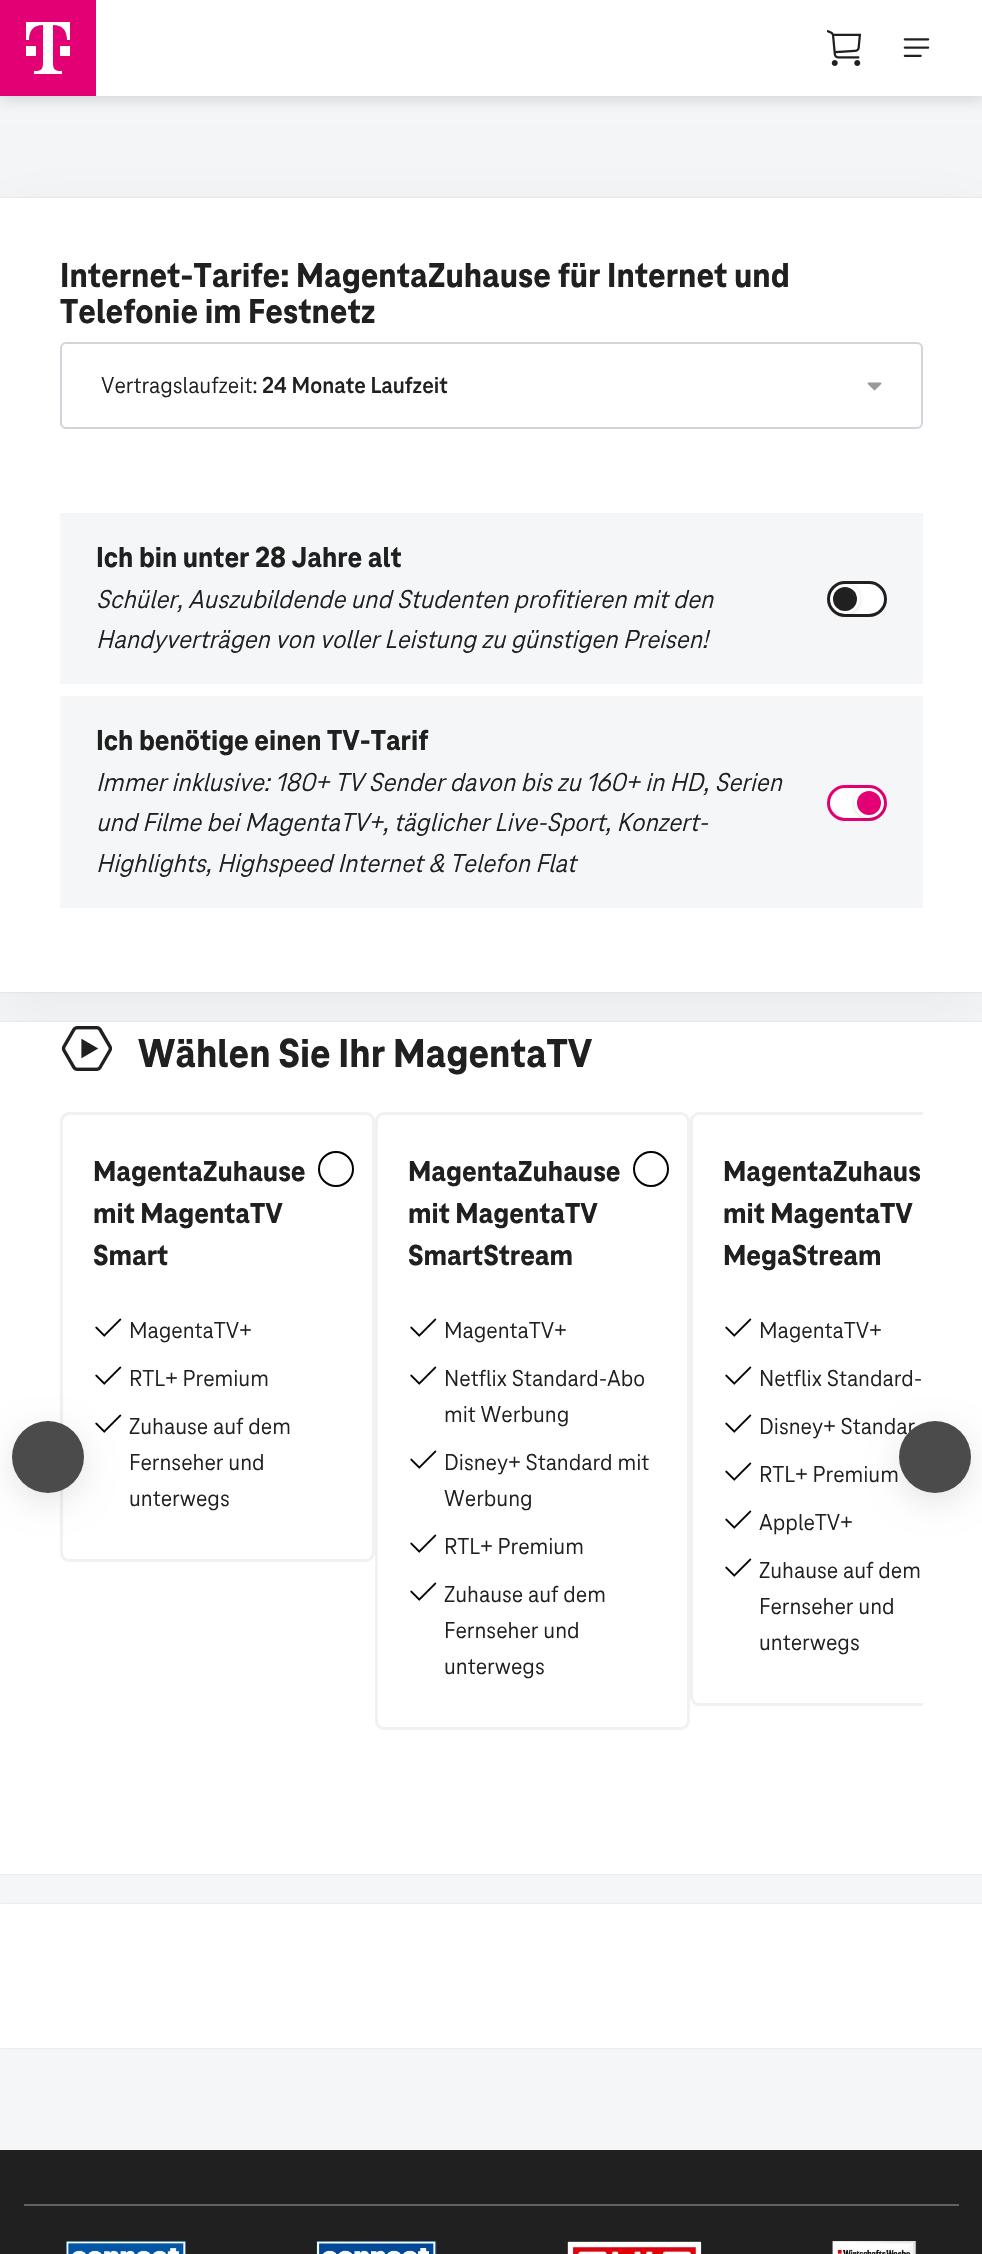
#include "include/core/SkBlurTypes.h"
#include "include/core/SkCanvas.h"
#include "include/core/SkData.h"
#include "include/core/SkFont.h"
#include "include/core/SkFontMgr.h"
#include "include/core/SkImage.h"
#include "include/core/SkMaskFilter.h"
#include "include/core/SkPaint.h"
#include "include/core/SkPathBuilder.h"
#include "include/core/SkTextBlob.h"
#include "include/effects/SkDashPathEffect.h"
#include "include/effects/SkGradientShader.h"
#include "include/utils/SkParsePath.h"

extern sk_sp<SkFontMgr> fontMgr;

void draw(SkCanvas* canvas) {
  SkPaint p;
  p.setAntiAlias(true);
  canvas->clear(SkColorSetRGB(32, 32, 32));
  p.setColor(SkColorSetRGB(244, 246, 248));
  canvas->drawRect(SkRect::MakeLTRB(0, 96, 982, 2150), p);
  p.setColor(SkColorSetARGB(38, 0, 0, 0));
  p.setMaskFilter(SkMaskFilter::MakeBlur(kNormal_SkBlurStyle, 7));
  canvas->drawRect(SkRect::MakeLTRB(0, 3, 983, 99), p);
  p.setMaskFilter(nullptr);
  p.setColor(SK_ColorWHITE);
  canvas->drawRect(SkRect::MakeLTRB(96, 0, 982, 96), p);
  p.setColor(SkColorSetRGB(226, 0, 116));
  canvas->drawRect(SkRect::MakeLTRB(0, 0, 96, 96), p);
  p.setColor(SK_ColorWHITE);
  canvas->drawPath(SkPathBuilder().moveTo(36, 56).lineTo(26, 56).lineTo(26, 46).lineTo(36, 46).close().moveTo(26, 22).lineTo(26, 40).lineTo(29, 40).cubicTo(29, 30, 34, 25, 43, 25).lineTo(43, 63).cubicTo(43, 69, 41, 71, 36, 71).lineTo(34, 71).lineTo(34, 74).lineTo(62, 74).lineTo(62, 71).lineTo(60, 71).cubicTo(55, 71, 53, 69, 53, 63).lineTo(53, 25).cubicTo(62, 25, 67, 30, 67, 40).lineTo(70, 40).lineTo(70, 22).close().moveTo(60, 56).lineTo(70, 56).lineTo(70, 46).lineTo(60, 46).close().detach(), p);
  canvas->drawImageRect(SkImages::DeferredFromEncodedData(SkData::MakeFromFileName("images/1.png")), SkRect::MakeLTRB(827, 30, 862, 66), SkSamplingOptions());
  canvas->drawImageRect(SkImages::DeferredFromEncodedData(SkData::MakeFromFileName("images/2.png")), SkRect::MakeLTRB(903, 38, 930, 57), SkSamplingOptions());
  p.setColor(SkColorSetARGB(13, 0, 0, 0));
  p.setMaskFilter(SkMaskFilter::MakeBlur(kNormal_SkBlurStyle, 30));
  canvas->drawRect(SkRect::MakeLTRB(0, 213, 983, 1007), p);
  p.setMaskFilter(nullptr);
  p.setColor(SkColorSetARGB(26, 0, 0, 0));
  p.setMaskFilter(SkMaskFilter::MakeBlur(kNormal_SkBlurStyle, 1));
  canvas->drawRect(SkRect::MakeLTRB(0, 198, 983, 992), p);
  p.setMaskFilter(nullptr);
  p.setColor(SK_ColorWHITE);
  canvas->drawRect(SkRect::MakeLTRB(0, 198, 982, 992), p);
  p.setStyle(SkPaint::kStroke_Style);
  p.setStrokeWidth(2);
  p.setColor(SkColorSetRGB(209, 213, 219));
  canvas->drawRoundRect(SkRect::MakeLTRB(61, 343, 922, 428), 5, 5, p);
  canvas->drawImageRect(SkImages::DeferredFromEncodedData(SkData::MakeFromFileName("images/3.png")), SkRect::MakeLTRB(867, 382, 882, 391), SkSamplingOptions());
  p.setStyle(SkPaint::kFill_Style);
  p.setColor(SkColorSetRGB(244, 246, 248));
  canvas->drawRect(SkRect::MakeLTRB(60, 513, 923, 684), p);
  p.setColor(SK_ColorWHITE);
  canvas->drawRoundRect(SkRect::MakeLTRB(828.5f, 582.5f, 885.5f, 615.5f), 16.5f, 16.5f, p);
  p.setStyle(SkPaint::kStroke_Style);
  p.setStrokeWidth(3);
  p.setColor(SkColorSetRGB(32, 32, 32));
  canvas->drawRoundRect(SkRect::MakeLTRB(828.5f, 582.5f, 885.5f, 615.5f), 16.5f, 16.5f, p);
  canvas->save();
  canvas->clipPath(SkPathBuilder(SkPathFillType::kEvenOdd).moveTo(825, 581).lineTo(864, 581).lineTo(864, 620).lineTo(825, 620).close().moveTo(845, 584).cubicTo(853.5f, 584, 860, 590.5f, 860, 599).cubicTo(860, 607.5f, 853.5f, 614, 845, 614).cubicTo(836.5f, 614, 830, 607.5f, 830, 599).cubicTo(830, 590.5f, 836.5f, 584, 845, 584).close().detach(), true);
  p.setStyle(SkPaint::kFill_Style);
  p.setColor(SkColorSetARGB(26, 0, 0, 0));
  p.setMaskFilter(SkMaskFilter::MakeBlur(kNormal_SkBlurStyle, 1.5f));
  canvas->drawRoundRect(SkRect::MakeLTRB(831, 587, 858, 614), 13.5f, 13.5f, p);
  p.setMaskFilter(nullptr);
  canvas->restore();
  canvas->save();
  canvas->clipPath(SkPathBuilder(SkPathFillType::kEvenOdd).moveTo(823, 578).lineTo(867, 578).lineTo(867, 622).lineTo(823, 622).close().moveTo(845, 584).cubicTo(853.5f, 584, 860, 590.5f, 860, 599).cubicTo(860, 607.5f, 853.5f, 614, 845, 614).cubicTo(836.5f, 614, 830, 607.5f, 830, 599).cubicTo(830, 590.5f, 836.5f, 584, 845, 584).close().detach(), true);
  p.setMaskFilter(SkMaskFilter::MakeBlur(kNormal_SkBlurStyle, 2));
  canvas->drawRoundRect(SkRect::MakeLTRB(830, 585, 860, 615), 15, 15, p);
  p.setMaskFilter(nullptr);
  canvas->restore();
  p.setColor(SkColorSetRGB(32, 32, 32));
  canvas->drawCircle(845, 599, 12, p);
  p.setColor(SkColorSetRGB(244, 246, 248));
  canvas->drawRect(SkRect::MakeLTRB(60, 696, 923, 908), p);
  p.setColor(SK_ColorWHITE);
  canvas->drawRoundRect(SkRect::MakeLTRB(828.5f, 786.5f, 885.5f, 819.5f), 16.5f, 16.5f, p);
  p.setStyle(SkPaint::kStroke_Style);
  p.setColor(SkColorSetRGB(226, 0, 116));
  canvas->drawRoundRect(SkRect::MakeLTRB(828.5f, 786.5f, 885.5f, 819.5f), 16.5f, 16.5f, p);
  canvas->save();
  canvas->clipPath(SkPathBuilder(SkPathFillType::kEvenOdd).moveTo(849, 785).lineTo(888, 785).lineTo(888, 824).lineTo(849, 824).close().moveTo(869, 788).cubicTo(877.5f, 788, 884, 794.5f, 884, 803).cubicTo(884, 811.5f, 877.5f, 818, 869, 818).cubicTo(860.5f, 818, 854, 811.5f, 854, 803).cubicTo(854, 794.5f, 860.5f, 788, 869, 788).close().detach(), true);
  p.setStyle(SkPaint::kFill_Style);
  p.setColor(SkColorSetARGB(26, 0, 0, 0));
  p.setMaskFilter(SkMaskFilter::MakeBlur(kNormal_SkBlurStyle, 1.5f));
  canvas->drawRoundRect(SkRect::MakeLTRB(855, 791, 882, 818), 13.5f, 13.5f, p);
  p.setMaskFilter(nullptr);
  canvas->restore();
  canvas->save();
  canvas->clipPath(SkPathBuilder(SkPathFillType::kEvenOdd).moveTo(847, 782).lineTo(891, 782).lineTo(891, 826).lineTo(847, 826).close().moveTo(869, 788).cubicTo(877.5f, 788, 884, 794.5f, 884, 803).cubicTo(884, 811.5f, 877.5f, 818, 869, 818).cubicTo(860.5f, 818, 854, 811.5f, 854, 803).cubicTo(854, 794.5f, 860.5f, 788, 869, 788).close().detach(), true);
  p.setMaskFilter(SkMaskFilter::MakeBlur(kNormal_SkBlurStyle, 2));
  canvas->drawRoundRect(SkRect::MakeLTRB(854, 789, 884, 819), 15, 15, p);
  p.setMaskFilter(nullptr);
  canvas->restore();
  p.setColor(SkColorSetRGB(226, 0, 116));
  canvas->drawCircle(869, 803, 12, p);
  p.setColor(SkColorSetARGB(26, 0, 0, 0));
  p.setMaskFilter(SkMaskFilter::MakeBlur(kNormal_SkBlurStyle, 1));
  canvas->drawRect(SkRect::MakeLTRB(0, 1022, 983, 1874), p);
  p.setMaskFilter(nullptr);
  p.setColor(SK_ColorWHITE);
  canvas->drawRect(SkRect::MakeLTRB(0, 1022, 982, 1874), p);
  canvas->drawImageRect(SkImages::DeferredFromEncodedData(SkData::MakeFromFileName("images/4.png")), SkRect::MakeLTRB(61, 1026, 113, 1071), SkSamplingOptions());
  p.setStyle(SkPaint::kStroke_Style);
  p.setColor(SkColorSetRGB(241, 241, 241));
  canvas->drawRoundRect(SkRect::MakeLTRB(61.5f, 1113.5f, 373.5f, 1560.5f), 7.5f, 7.5f, p);
  canvas->drawImageRect(SkImages::DeferredFromEncodedData(SkData::MakeFromFileName("images/5.png")), SkRect::MakeLTRB(95, 1366, 122, 1385), SkSamplingOptions());
  canvas->drawImageRect(SkImages::DeferredFromEncodedData(SkData::MakeFromFileName("images/5.png")), SkRect::MakeLTRB(95, 1414, 122, 1433), SkSamplingOptions());
  p.setStyle(SkPaint::kFill_Style);
  p.setColor(SkColorSetARGB(26, 0, 0, 0));
  p.setMaskFilter(SkMaskFilter::MakeBlur(kNormal_SkBlurStyle, 15));
  canvas->drawRoundRect(SkRect::MakeLTRB(12, 1430, 84, 1502), 36, 36, p);
  p.setMaskFilter(nullptr);
  p.setColor(SkColorSetRGB(75, 75, 75));
  canvas->drawCircle(48, 1457, 36, p);
  p.setStyle(SkPaint::kStroke_Style);
  p.setStrokeWidth(2);
  p.setColor(SK_ColorBLACK);
  canvas->drawCircle(336, 1169, 17, p);
  canvas->drawImageRect(SkImages::DeferredFromEncodedData(SkData::MakeFromFileName("images/5.png")), SkRect::MakeLTRB(95, 1318, 122, 1337), SkSamplingOptions());
  p.setStrokeWidth(3);
  p.setColor(SkColorSetRGB(241, 241, 241));
  canvas->drawRoundRect(SkRect::MakeLTRB(376.5f, 1113.5f, 688.5f, 1728.5f), 7.5f, 7.5f, p);
  p.setStrokeWidth(2);
  p.setColor(SK_ColorBLACK);
  canvas->drawCircle(651, 1169, 17, p);
  canvas->drawImageRect(SkImages::DeferredFromEncodedData(SkData::MakeFromFileName("images/5.png")), SkRect::MakeLTRB(410, 1318, 437, 1337), SkSamplingOptions());
  canvas->drawImageRect(SkImages::DeferredFromEncodedData(SkData::MakeFromFileName("images/5.png")), SkRect::MakeLTRB(410, 1366, 437, 1385), SkSamplingOptions());
  canvas->drawImageRect(SkImages::DeferredFromEncodedData(SkData::MakeFromFileName("images/5.png")), SkRect::MakeLTRB(410, 1450, 437, 1469), SkSamplingOptions());
  canvas->drawImageRect(SkImages::DeferredFromEncodedData(SkData::MakeFromFileName("images/5.png")), SkRect::MakeLTRB(410, 1534, 437, 1553), SkSamplingOptions());
  canvas->drawImageRect(SkImages::DeferredFromEncodedData(SkData::MakeFromFileName("images/5.png")), SkRect::MakeLTRB(410, 1582, 437, 1601), SkSamplingOptions());
  canvas->save();
  canvas->clipRect(SkRect::MakeLTRB(60, 1112, 923, 1730));
  p.setStrokeWidth(3);
  p.setColor(SkColorSetRGB(241, 241, 241));
  canvas->drawRoundRect(SkRect::MakeLTRB(691.5f, 1113.5f, 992.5f, 1704.5f), 7.5f, 7.5f, p);
  canvas->restore();
  canvas->drawImageRect(SkImages::DeferredFromEncodedData(SkData::MakeFromFileName("images/5.png")), SkRect::MakeLTRB(725, 1318, 752, 1337), SkSamplingOptions());
  canvas->drawImageRect(SkImages::DeferredFromEncodedData(SkData::MakeFromFileName("images/5.png")), SkRect::MakeLTRB(725, 1366, 752, 1385), SkSamplingOptions());
  canvas->drawImageRect(SkImages::DeferredFromEncodedData(SkData::MakeFromFileName("images/5.png")), SkRect::MakeLTRB(725, 1414, 752, 1433), SkSamplingOptions());
  canvas->drawImageRect(SkImages::DeferredFromEncodedData(SkData::MakeFromFileName("images/5.png")), SkRect::MakeLTRB(725, 1462, 752, 1481), SkSamplingOptions());
  canvas->drawImageRect(SkImages::DeferredFromEncodedData(SkData::MakeFromFileName("images/5.png")), SkRect::MakeLTRB(725, 1510, 752, 1529), SkSamplingOptions());
  canvas->drawImageRect(SkImages::DeferredFromEncodedData(SkData::MakeFromFileName("images/5.png")), SkRect::MakeLTRB(725, 1558, 752, 1577), SkSamplingOptions());
  p.setStyle(SkPaint::kFill_Style);
  p.setColor(SkColorSetARGB(26, 0, 0, 0));
  p.setMaskFilter(SkMaskFilter::MakeBlur(kNormal_SkBlurStyle, 15));
  canvas->drawRoundRect(SkRect::MakeLTRB(899, 1430, 971, 1502), 36, 36, p);
  p.setMaskFilter(nullptr);
  p.setMaskFilter(SkMaskFilter::MakeBlur(kNormal_SkBlurStyle, 1));
  canvas->drawRect(SkRect::MakeLTRB(0, 1904, 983, 2048), p);
  p.setMaskFilter(nullptr);
  p.setColor(SK_ColorWHITE);
  canvas->drawRect(SkRect::MakeLTRB(0, 1904, 982, 2048), p);
  p.setColor(SkColorSetRGB(98, 98, 98));
  canvas->drawRect(SkRect::MakeLTRB(24, 2204, 959, 2206), p);
  canvas->drawImageRect(SkImages::DeferredFromEncodedData(SkData::MakeFromFileName("images/6.png")), SkRect::MakeLTRB(66, 2241, 186, 2254), SkSamplingOptions());
  canvas->drawImageRect(SkImages::DeferredFromEncodedData(SkData::MakeFromFileName("images/7.png")), SkRect::MakeLTRB(316, 2241, 437, 2254), SkSamplingOptions());
  canvas->drawImageRect(SkImages::DeferredFromEncodedData(SkData::MakeFromFileName("images/8.png")), SkRect::MakeLTRB(567, 2241, 702, 2254), SkSamplingOptions());
  canvas->drawImageRect(SkImages::DeferredFromEncodedData(SkData::MakeFromFileName("images/9.png")), SkRect::MakeLTRB(832, 2241, 917, 2254), SkSamplingOptions());
  SkFont font1(fontMgr->matchFamilyStyle("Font", SkFontStyle(800, SkFontStyle::kNormal_Width, SkFontStyle::kUpright_Slant)), 36);
  font1.setSubpixel(true);
  p.setColor(SkColorSetRGB(32, 32, 32));
  canvas->drawString("Internet-Tarife: MagentaZuhause für Internet und", 60, 287, font1, p);
  canvas->drawString("Telefonie im Festnetz", 60, 323, font1, p);
  SkFont font2(fontMgr->matchFamilyStyle("Font", SkFontStyle::Normal()), 24);
  font2.setSubpixel(true);
  canvas->drawString("Vertragslaufzeit:", 101, 393, font2, p);
  SkFont font3(fontMgr->matchFamilyStyle("Font", SkFontStyle::Bold()), 24);
  font3.setSubpixel(true);
  canvas->drawString("24 Monate Laufzeit", 262, 393, font3, p);
  SkFont font4(fontMgr->matchFamilyStyle("Font", SkFontStyle(800, SkFontStyle::kNormal_Width, SkFontStyle::kUpright_Slant)), 30);
  font4.setSubpixel(true);
  canvas->drawString("Ich bin unter 28 Jahre alt", 96, 567, font4, p);
  SkFont font5(fontMgr->matchFamilyStyle("Font", SkFontStyle::Italic()), 27);
  font5.setSubpixel(true);
  canvas->drawString("Schüler, Auszubildende und Studenten profitieren mit den", 96, 608, font5, p);
  canvas->drawString("Handyverträgen von voller Leistung zu günstigen Preisen!", 96, 648, font5, p);
  canvas->drawString("Ich benötige einen TV-Tarif", 96, 750, font4, p);
  canvas->drawString("Immer inklusive: 180+ TV Sender davon bis zu 160+ in HD, Serien", 96, 791, font5, p);
  canvas->drawString("und Filme bei MagentaTV+, täglicher Live-Sport, Konzert-", 96, 831, font5, p);
  canvas->drawString("Highlights, Highspeed Internet & Telefon Flat", 96, 872, font5, p);
  SkFont font6(fontMgr->matchFamilyStyle("Font", SkFontStyle(800, SkFontStyle::kNormal_Width, SkFontStyle::kUpright_Slant)), 42);
  font6.setSubpixel(true);
  canvas->drawString("Wählen Sie Ihr MagentaTV", 138, 1067, font6, p);
  canvas->drawString("MagentaZuhause", 93, 1181, font4, p);
  canvas->drawString("mit MagentaTV", 93, 1223, font4, p);
  canvas->drawString("Smart", 93, 1265, font4, p);
  canvas->drawString("MagentaTV+", 129, 1338, font2, p);
  canvas->drawString("RTL+ Premium", 129, 1386, font2, p);
  canvas->drawString("Zuhause auf dem", 129, 1434, font2, p);
  canvas->drawString("Fernseher und", 129, 1470, font2, p);
  canvas->drawString("unterwegs", 129, 1506, font2, p);
  canvas->drawString("MagentaZuhause", 408, 1181, font4, p);
  canvas->drawString("mit MagentaTV", 408, 1223, font4, p);
  canvas->drawString("SmartStream", 408, 1265, font4, p);
  canvas->drawString("MagentaTV+", 444, 1338, font2, p);
  canvas->drawString("Netflix Standard-Abo", 444, 1386, font2, p);
  canvas->drawString("mit Werbung", 444, 1422, font2, p);
  canvas->drawString("Disney+ Standard mit", 444, 1470, font2, p);
  canvas->drawString("Werbung", 444, 1506, font2, p);
  canvas->drawString("RTL+ Premium", 444, 1554, font2, p);
  canvas->drawString("Zuhause auf dem", 444, 1602, font2, p);
  canvas->drawString("Fernseher und", 444, 1638, font2, p);
  canvas->drawString("unterwegs", 444, 1674, font2, p);
  canvas->drawString("MagentaZuhaus", 723, 1181, font4, p);
  canvas->drawString("mit MagentaTV", 723, 1223, font4, p);
  canvas->drawString("MegaStream", 723, 1265, font4, p);
  canvas->drawString("MagentaTV+", 759, 1338, font2, p);
  canvas->drawString("Netflix Standard-", 759, 1386, font2, p);
  canvas->drawString("Disney+ Standar", 759, 1434, font2, p);
  canvas->drawString("RTL+ Premium", 759, 1482, font2, p);
  canvas->drawString("AppleTV+", 759, 1530, font2, p);
  canvas->drawString("Zuhause auf dem", 759, 1578, font2, p);
  canvas->drawString("Fernseher und", 759, 1614, font2, p);
  canvas->drawString("unterwegs", 759, 1650, font2, p);
  p.setColor(SkColorSetRGB(75, 75, 75));
  canvas->drawCircle(935, 1457, 36, p);
}
